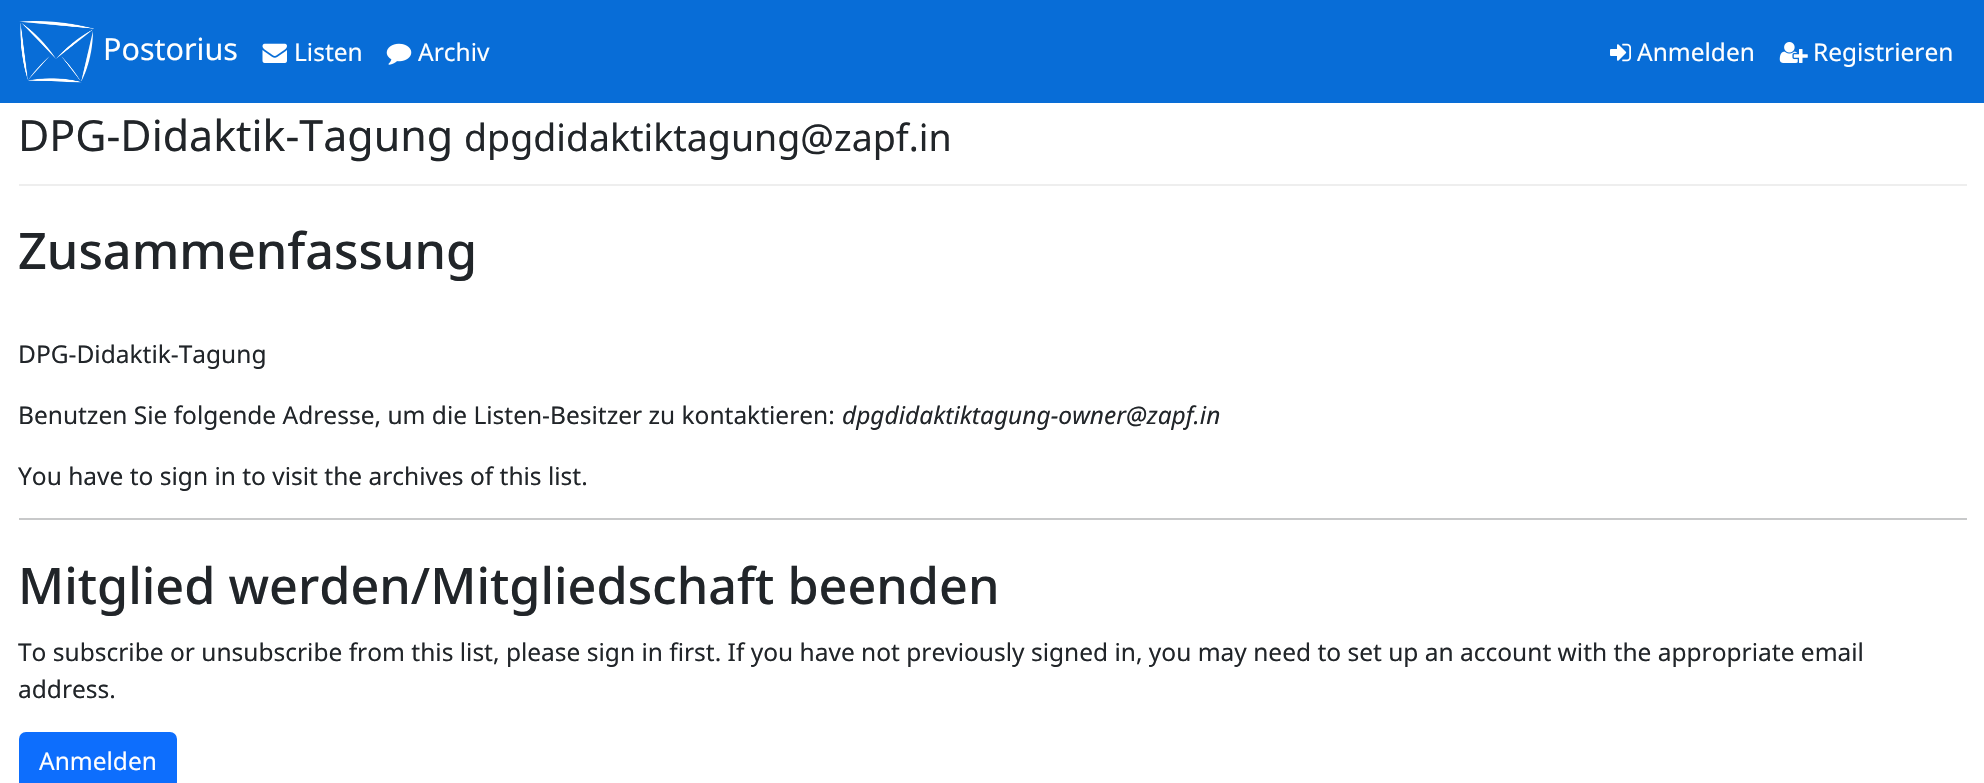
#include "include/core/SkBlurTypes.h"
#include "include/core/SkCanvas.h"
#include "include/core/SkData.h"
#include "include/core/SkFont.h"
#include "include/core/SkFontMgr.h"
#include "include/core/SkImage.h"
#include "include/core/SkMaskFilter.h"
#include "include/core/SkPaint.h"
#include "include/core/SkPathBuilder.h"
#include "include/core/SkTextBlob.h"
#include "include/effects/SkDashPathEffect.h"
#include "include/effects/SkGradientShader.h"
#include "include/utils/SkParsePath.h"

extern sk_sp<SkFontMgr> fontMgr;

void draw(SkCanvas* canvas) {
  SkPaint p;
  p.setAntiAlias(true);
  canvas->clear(SK_ColorWHITE);
  p.setColor(SkColorSetRGB(8, 109, 215));
  canvas->drawRect(SkRect::MakeLTRB(0, 0, 1984, 103), p);
  canvas->drawImageRect(SkImages::DeferredFromEncodedData(SkData::MakeFromFileName("images/1.png")), SkRect::MakeLTRB(19, 21, 94, 83), SkSamplingOptions());
  canvas->drawImageRect(SkImages::DeferredFromEncodedData(SkData::MakeFromFileName("images/2.png")), SkRect::MakeLTRB(262, 43, 287, 63), SkSamplingOptions());
  canvas->drawImageRect(SkImages::DeferredFromEncodedData(SkData::MakeFromFileName("images/3.png")), SkRect::MakeLTRB(386, 43, 412, 65), SkSamplingOptions());
  canvas->drawImageRect(SkImages::DeferredFromEncodedData(SkData::MakeFromFileName("images/4.png")), SkRect::MakeLTRB(1610, 43, 1631, 62), SkSamplingOptions());
  canvas->drawImageRect(SkImages::DeferredFromEncodedData(SkData::MakeFromFileName("images/5.png")), SkRect::MakeLTRB(1779, 42, 1808, 63), SkSamplingOptions());
  p.setColor(SkColorSetRGB(238, 238, 238));
  canvas->drawRect(SkRect::MakeLTRB(19, 184, 1967, 186), p);
  p.setColor(SkColorSetRGB(200, 201, 202));
  canvas->drawRect(SkRect::MakeLTRB(19, 518, 1967, 520), p);
  p.setColor(SkColorSetRGB(13, 110, 253));
  canvas->drawRoundRect(SkRect::MakeLTRB(20, 733, 176, 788), 6, 6, p);
  p.setStyle(SkPaint::kStroke_Style);
  p.setStrokeWidth(2);
  canvas->drawRoundRect(SkRect::MakeLTRB(20, 733, 176, 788), 6, 6, p);
  SkFont font1(fontMgr->matchFamilyStyle("Noto Sans", SkFontStyle::Normal()), 30.5f);
  font1.setSubpixel(true);
  p.setStyle(SkPaint::kFill_Style);
  p.setColor(SK_ColorWHITE);
  canvas->drawString("Postorius", 103, 60, font1, p);
  SkFont font2(fontMgr->matchFamilyStyle("Noto Sans", SkFontStyle::Normal()), 24.5f);
  font2.setSubpixel(true);
  canvas->drawString("Listen", 294, 61, font2, p);
  canvas->drawString("Archiv", 418, 61, font2, p);
  canvas->drawString("Anmelden", 1637, 61, font2, p);
  canvas->drawString("Registrieren", 1813, 61, font2, p);
  SkFont font3(fontMgr->matchFamilyStyle("Noto Sans", SkFontStyle::Normal()), 42.9f);
  font3.setSubpixel(true);
  p.setColor(SkColorSetRGB(33, 37, 41));
  canvas->drawString("DPG-Didaktik-Tagung", 18, 151, font3, p);
  SkFont font4(fontMgr->matchFamilyStyle("Noto Sans", SkFontStyle::Normal()), 37.5f);
  font4.setSubpixel(true);
  canvas->drawString("dpgdidaktiktagung@zapf.in", 464, 151, font4, p);
  SkFont font5(fontMgr->matchFamilyStyle("Noto Sans", SkFontStyle(500, SkFontStyle::kNormal_Width, SkFontStyle::kUpright_Slant)), 50.3f);
  font5.setSubpixel(true);
  canvas->drawString("Zusammenfassung", 18, 269, font5, p);
  canvas->drawString("DPG-Didaktik-Tagung", 18, 363, font2, p);
  canvas->drawString("Benutzen Sie folgende Adresse, um die Listen-Besitzer zu kontaktieren:", 18, 424, font2, p);
  SkFont font6(fontMgr->matchFamilyStyle("Noto Sans", SkFontStyle::Italic()), 24.5f);
  font6.setSubpixel(true);
  canvas->drawString("dpgdidaktiktagung-owner@zapf.in", 842, 424, font6, p);
  canvas->drawString("You have to sign in to visit the archives of this list.", 18, 485, font2, p);
  canvas->drawString("Mitglied werden/Mitgliedschaft beenden", 18, 604, font5, p);
  canvas->drawString("To subscribe or unsubscribe from this list, please sign in first. If you have not previously signed in, you may need to set up an account with the appropriate email", 18, 661, font2, p);
  canvas->drawString("address.", 18, 698, font2, p);
  p.setColor(SK_ColorWHITE);
  canvas->drawString("Anmelden", 39, 770, font2, p);
}
